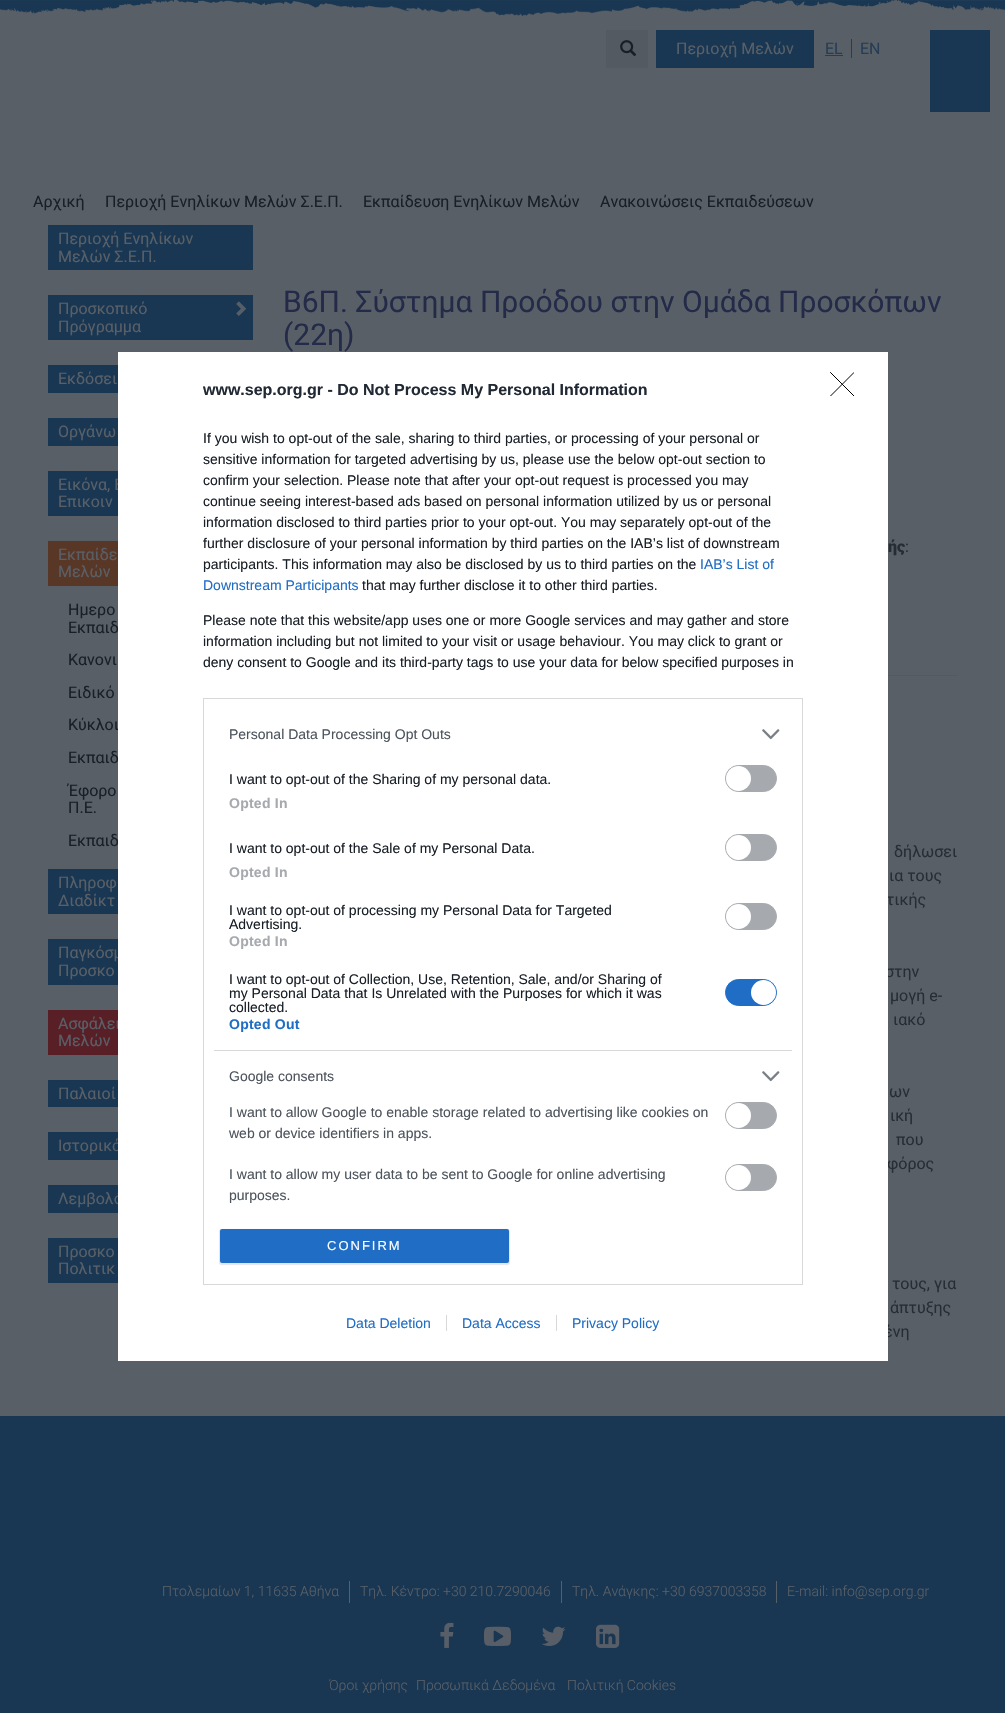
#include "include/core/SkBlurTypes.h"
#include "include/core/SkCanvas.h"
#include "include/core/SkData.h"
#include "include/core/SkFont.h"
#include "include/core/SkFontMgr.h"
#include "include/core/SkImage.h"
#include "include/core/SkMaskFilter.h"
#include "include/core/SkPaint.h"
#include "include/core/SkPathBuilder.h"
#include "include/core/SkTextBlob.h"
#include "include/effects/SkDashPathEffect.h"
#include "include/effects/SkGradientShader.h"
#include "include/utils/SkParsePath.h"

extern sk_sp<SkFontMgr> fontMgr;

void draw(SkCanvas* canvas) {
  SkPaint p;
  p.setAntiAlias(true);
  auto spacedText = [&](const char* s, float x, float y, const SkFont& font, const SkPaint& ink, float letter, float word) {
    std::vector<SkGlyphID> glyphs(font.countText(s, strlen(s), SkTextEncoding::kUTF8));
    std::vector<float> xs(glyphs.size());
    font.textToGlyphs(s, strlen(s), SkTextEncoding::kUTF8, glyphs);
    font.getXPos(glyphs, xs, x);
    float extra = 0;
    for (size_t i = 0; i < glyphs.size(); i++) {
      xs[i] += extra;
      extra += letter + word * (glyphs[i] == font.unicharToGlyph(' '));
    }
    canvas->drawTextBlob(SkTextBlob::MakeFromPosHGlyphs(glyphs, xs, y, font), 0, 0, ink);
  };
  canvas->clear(SkColorSetRGB(89, 95, 103));
  canvas->drawImageRect(SkImages::DeferredFromEncodedData(SkData::MakeFromFileName("images/1.png")), SkRect::MakeLTRB(0, 0, 1005, 16), SkSamplingOptions());
  p.setColor(SkColorSetRGB(84, 90, 98));
  canvas->drawRect(SkRect::MakeLTRB(606, 30, 648, 68), p);
  canvas->drawImageRect(SkImages::DeferredFromEncodedData(SkData::MakeFromFileName("images/2.png")), SkRect::MakeLTRB(620, 40, 637, 57), SkSamplingOptions());
  p.setColor(SkColorSetRGB(25, 55, 82));
  canvas->drawRect(SkRect::MakeLTRB(656, 30, 814, 68), p);
  p.setColor(SkColorSetRGB(38, 61, 85));
  canvas->drawRect(SkRect::MakeLTRB(851, 39, 852, 58), p);
  canvas->drawRect(SkRect::MakeLTRB(825, 55, 843, 56), p);
  p.setColor(SkColorSetRGB(25, 55, 82));
  canvas->drawRect(SkRect::MakeLTRB(930, 30, 990, 112), p);
  canvas->drawRect(SkRect::MakeLTRB(48, 225, 253, 270), p);
  canvas->drawRect(SkRect::MakeLTRB(48, 295, 253, 340), p);
  canvas->drawImageRect(SkImages::DeferredFromEncodedData(SkData::MakeFromFileName("images/3.png")), SkRect::MakeLTRB(236, 301, 247, 316), SkSamplingOptions());
  canvas->drawRect(SkRect::MakeLTRB(48, 365, 118, 393), p);
  canvas->drawRect(SkRect::MakeLTRB(48, 418, 118, 446), p);
  canvas->drawRect(SkRect::MakeLTRB(48, 471, 118, 516), p);
  p.setColor(SkColorSetRGB(89, 55, 39));
  canvas->drawRect(SkRect::MakeLTRB(48, 541, 118, 586), p);
  p.setColor(SkColorSetRGB(25, 55, 82));
  canvas->drawRect(SkRect::MakeLTRB(48, 869, 118, 914), p);
  canvas->drawRect(SkRect::MakeLTRB(48, 939, 118, 985), p);
  p.setColor(SkColorSetRGB(89, 31, 39));
  canvas->drawRect(SkRect::MakeLTRB(48, 1010, 118, 1055), p);
  p.setColor(SkColorSetRGB(25, 55, 82));
  canvas->drawRect(SkRect::MakeLTRB(48, 1080, 118, 1107), p);
  canvas->drawRect(SkRect::MakeLTRB(48, 1132, 118, 1160), p);
  canvas->drawRect(SkRect::MakeLTRB(48, 1185, 118, 1213), p);
  canvas->drawRect(SkRect::MakeLTRB(48, 1238, 118, 1283), p);
  p.setColor(SkColorSetRGB(84, 90, 99));
  canvas->drawRect(SkRect::MakeLTRB(888, 675, 958, 676), p);
  p.setColor(SkColorSetRGB(25, 55, 82));
  canvas->drawRect(SkRect::MakeLTRB(0, 1416, 1005, 1713), p);
  p.setColor(SkColorSetRGB(89, 95, 103));
  canvas->drawRect(SkRect::MakeLTRB(349, 1581, 350, 1603), p);
  canvas->drawRect(SkRect::MakeLTRB(561, 1581, 562, 1603), p);
  canvas->drawRect(SkRect::MakeLTRB(776, 1581, 777, 1603), p);
  canvas->drawImageRect(SkImages::DeferredFromEncodedData(SkData::MakeFromFileName("images/4.png")), SkRect::MakeLTRB(440, 1622, 454, 1648), SkSamplingOptions());
  canvas->drawImageRect(SkImages::DeferredFromEncodedData(SkData::MakeFromFileName("images/5.png")), SkRect::MakeLTRB(484, 1626, 511, 1646), SkSamplingOptions());
  canvas->drawImageRect(SkImages::DeferredFromEncodedData(SkData::MakeFromFileName("images/6.png")), SkRect::MakeLTRB(541, 1626, 566, 1646), SkSamplingOptions());
  canvas->drawImageRect(SkImages::DeferredFromEncodedData(SkData::MakeFromFileName("images/7.png")), SkRect::MakeLTRB(596, 1624, 620, 1648), SkSamplingOptions());
  SkFont font1(fontMgr->matchFamilyStyle("Roboto", SkFontStyle::Normal()), 16);
  font1.setSubpixel(true);
  canvas->drawString("Περιοχή Μελών", 676, 54, font1, p);
  p.setColor(SkColorSetRGB(38, 61, 85));
  canvas->drawString("EL", 825, 54, font1, p);
  canvas->drawString("EN", 860, 54, font1, p);
  p.setColor(SkColorSetRGB(25, 31, 39));
  canvas->drawString("Αρχική", 33, 207, font1, p);
  canvas->drawString("Περιοχή Ενηλίκων Μελών Σ.Ε.Π.", 105, 207, font1, p);
  canvas->drawString("Εκπαίδευση Ενηλίκων Μελών", 363, 207, font1, p);
  canvas->drawString("Ανακοινώσεις Εκπαιδεύσεων", 600, 207, font1, p);
  p.setColor(SkColorSetRGB(89, 95, 103));
  canvas->drawString("Περιοχή Ενηλίκων", 58, 244, font1, p);
  canvas->drawString("Μελών Σ.Ε.Π.", 58, 262, font1, p);
  canvas->drawString("Προσκοπικό", 58, 314, font1, p);
  canvas->drawString("Πρόγραμμα", 58, 332, font1, p);
  canvas->drawString("Εκδόσει", 58, 384, font1, p);
  canvas->drawString("Οργάνω", 58, 437, font1, p);
  canvas->drawString("Εικόνα, Ε", 58, 490, font1, p);
  canvas->drawString("Επικοιν", 58, 507, font1, p);
  canvas->drawString("Εκπαίδε", 58, 560, font1, p);
  canvas->drawString("Μελών", 58, 577, font1, p);
  p.setColor(SkColorSetRGB(25, 31, 39));
  canvas->drawString("Ημερο", 68, 615, font1, p);
  canvas->drawString("Εκπαιδ", 68, 633, font1, p);
  canvas->drawString("Κανονι", 68, 665, font1, p);
  canvas->drawString("Ειδικό", 68, 698, font1, p);
  canvas->drawString("Κύκλοι", 68, 730, font1, p);
  canvas->drawString("Εκπαιδ", 68, 763, font1, p);
  canvas->drawString("Έφορο", 68, 796, font1, p);
  canvas->drawString("Π.Ε.", 68, 813, font1, p);
  canvas->drawString("Εκπαιδ", 68, 846, font1, p);
  p.setColor(SkColorSetRGB(89, 95, 103));
  canvas->drawString("Πληροφ", 58, 888, font1, p);
  canvas->drawString("Διαδίκτ", 58, 906, font1, p);
  canvas->drawString("Παγκόσμ", 58, 958, font1, p);
  canvas->drawString("Προσκο", 58, 976, font1, p);
  canvas->drawString("Ασφάλει", 58, 1029, font1, p);
  canvas->drawString("Μελών", 58, 1046, font1, p);
  canvas->drawString("Παλαιοί", 58, 1099, font1, p);
  canvas->drawString("Ιστορικό", 58, 1151, font1, p);
  canvas->drawString("Λεμβολό", 58, 1204, font1, p);
  canvas->drawString("Προσκο", 58, 1257, font1, p);
  canvas->drawString("Πολιτικ", 58, 1274, font1, p);
  SkFont font2(fontMgr->matchFamilyStyle("Roboto", SkFontStyle::Normal()), 30);
  font2.setSubpixel(true);
  p.setColor(SkColorSetRGB(36, 43, 73));
  canvas->drawString("Β6Π. Σύστημα Προόδου στην Ομάδα Προσκόπων", 283, 312, font2, p);
  canvas->drawString("(22η)", 283, 345, font2, p);
  SkFont font3(fontMgr->matchFamilyStyle("Roboto", SkFontStyle(900, SkFontStyle::kNormal_Width, SkFontStyle::kUpright_Slant)), 16);
  font3.setSubpixel(true);
  p.setColor(SkColorSetRGB(39, 45, 53));
  canvas->drawString("ής", 888, 552, font3, p);
  canvas->drawString(":", 905, 552, font1, p);
  canvas->drawString("δήλωσει", 894, 857, font1, p);
  canvas->drawString("ια τους", 889, 881, font1, p);
  canvas->drawString("τικής", 886, 905, font1, p);
  canvas->drawString("στην", 885, 977, font1, p);
  canvas->drawString("μογή e-", 890, 1001, font1, p);
  canvas->drawString("ιακό", 893, 1025, font1, p);
  canvas->drawString("ων", 889, 1097, font1, p);
  canvas->drawString("ική", 890, 1121, font1, p);
  canvas->drawString("που", 896, 1145, font1, p);
  canvas->drawString("φόρος", 887, 1169, font1, p);
  canvas->drawString("τους, για", 892, 1289, font1, p);
  canvas->drawString("άπτυξης", 890, 1313, font1, p);
  canvas->drawString("ένη", 884, 1337, font1, p);
  SkFont font4(fontMgr->matchFamilyStyle("Roboto", SkFontStyle(300, SkFontStyle::kNormal_Width, SkFontStyle::kUpright_Slant)), 14);
  font4.setSubpixel(true);
  p.setColor(SkColorSetRGB(89, 95, 103));
  canvas->drawString("Πτολεμαίων 1, 11635 Αθήνα", 162, 1596, font4, p);
  canvas->drawString("Τηλ. Κέντρο: +30 210.7290046", 360, 1596, font4, p);
  canvas->drawString("Τηλ. Ανάγκης: +30 6937003358", 572, 1596, font4, p);
  canvas->drawString("E-mail: info@sep.org.gr", 787, 1596, font4, p);
  canvas->drawString("Όροι χρήσης", 329, 1690, font4, p);
  canvas->drawString("Προσωπικά Δεδομένα", 416, 1690, font4, p);
  canvas->drawString("Πολιτική Cookies", 567, 1690, font4, p);
  p.setColor(SK_ColorWHITE);
  canvas->drawRect(SkRect::MakeLTRB(118, 352, 888, 1361), p);
  SkFont font5(fontMgr->matchFamilyStyle("Liberation Sans", SkFontStyle::Bold()), 16);
  font5.setSubpixel(true);
  p.setColor(SkColorSetRGB(33, 41, 52));
  canvas->drawString("www.sep.org.gr - Do Not Process My Personal Information", 203, 395, font5, p);
  SkFont font6(fontMgr->matchFamilyStyle("Liberation Sans", SkFontStyle::Normal()), 14);
  font6.setSubpixel(true);
  p.setColor(SkColorSetRGB(25, 31, 39));
  canvas->drawString("If you wish to opt-out of the sale, sharing to third parties, or processing of your personal or", 203, 443, font6, p);
  canvas->drawString("sensitive information for targeted advertising by us, please use the below opt-out section to", 203, 464, font6, p);
  canvas->drawString("confirm your selection. Please note that after your opt-out request is processed you may", 203, 485, font6, p);
  canvas->drawString("continue seeing interest-based ads based on personal information utilized by us or personal", 203, 506, font6, p);
  canvas->drawString("information disclosed to third parties prior to your opt-out. You may separately opt-out of the", 203, 527, font6, p);
  canvas->drawString("further disclosure of your personal information by third parties on the IAB’s list of downstream", 203, 548, font6, p);
  canvas->drawString("participants. This information may also be disclosed by us to third parties on the", 203, 569, font6, p);
  p.setColor(SkColorSetRGB(32, 109, 197));
  canvas->drawString("IAB’s List of", 700, 569, font6, p);
  canvas->drawString("Downstream Participants", 203, 590, font6, p);
  p.setColor(SkColorSetRGB(25, 31, 39));
  canvas->drawString("that may further disclose it to other third parties.", 362, 590, font6, p);
  canvas->drawString("Please note that this website/app uses one or more Google services and may gather and store", 203, 625, font6, p);
  canvas->drawString("information including but not limited to your visit or usage behaviour. You may click to grant or", 203, 646, font6, p);
  canvas->drawString("deny consent to Google and its third-party tags to use your data for below specified purposes in", 203, 667, font6, p);
  p.setStyle(SkPaint::kStroke_Style);
  p.setStrokeWidth(1);
  p.setColor(SkColorSetRGB(216, 216, 216));
  canvas->drawRect(SkRect::MakeLTRB(203.5f, 698.5f, 802.5f, 1284.5f), p);
  p.setStyle(SkPaint::kFill_Style);
  canvas->drawRect(SkRect::MakeLTRB(214, 1050, 792, 1051), p);
  p.setColor(SkColorSetRGB(77, 84, 93));
  canvas->drawString("Personal Data Processing Opt Outs", 229, 739, font6, p);
  canvas->drawImageRect(SkImages::DeferredFromEncodedData(SkData::MakeFromFileName("images/8.png")), SkRect::MakeLTRB(762, 729, 780, 740), SkSamplingOptions());
  p.setColor(SkColorSetRGB(25, 31, 39));
  canvas->drawString("I want to opt-out of the Sharing of my personal data.", 229, 784, font6, p);
  p.setColor(SkColorSetRGB(166, 169, 174));
  canvas->drawRoundRect(SkRect::MakeLTRB(725.5f, 765.5f, 776.5f, 791.5f), 13, 13, p);
  p.setStyle(SkPaint::kStroke_Style);
  canvas->drawRoundRect(SkRect::MakeLTRB(725.5f, 765.5f, 776.5f, 791.5f), 13, 13, p);
  p.setStyle(SkPaint::kFill_Style);
  p.setColor(SK_ColorWHITE);
  canvas->drawCircle(738.5f, 778.5f, 12.5f, p);
  SkFont font7(fontMgr->matchFamilyStyle("Liberation Sans", SkFontStyle::Bold()), 14);
  font7.setSubpixel(true);
  p.setColor(SkColorSetRGB(166, 169, 174));
  spacedText("Opted In", 229, 808, font7, p, 0.25f, 0);
  p.setColor(SkColorSetRGB(25, 31, 39));
  canvas->drawString("I want to opt-out of the Sale of my Personal Data.", 229, 853, font6, p);
  p.setColor(SkColorSetRGB(166, 169, 174));
  canvas->drawRoundRect(SkRect::MakeLTRB(725.5f, 834.5f, 776.5f, 860.5f), 13, 13, p);
  p.setStyle(SkPaint::kStroke_Style);
  canvas->drawRoundRect(SkRect::MakeLTRB(725.5f, 834.5f, 776.5f, 860.5f), 13, 13, p);
  p.setStyle(SkPaint::kFill_Style);
  p.setColor(SK_ColorWHITE);
  canvas->drawCircle(738.5f, 847.5f, 12.5f, p);
  p.setColor(SkColorSetRGB(166, 169, 174));
  spacedText("Opted In", 229, 877, font7, p, 0.25f, 0);
  p.setColor(SkColorSetRGB(25, 31, 39));
  canvas->drawString("I want to opt-out of processing my Personal Data for Targeted", 229, 915, font6, p);
  canvas->drawString("Advertising.", 229, 929, font6, p);
  p.setColor(SkColorSetRGB(166, 169, 174));
  canvas->drawRoundRect(SkRect::MakeLTRB(725.5f, 903.5f, 776.5f, 929.5f), 13, 13, p);
  p.setStyle(SkPaint::kStroke_Style);
  canvas->drawRoundRect(SkRect::MakeLTRB(725.5f, 903.5f, 776.5f, 929.5f), 13, 13, p);
  p.setStyle(SkPaint::kFill_Style);
  p.setColor(SK_ColorWHITE);
  canvas->drawCircle(738.5f, 916.5f, 12.5f, p);
  p.setColor(SkColorSetRGB(166, 169, 174));
  spacedText("Opted In", 229, 946, font7, p, 0.25f, 0);
  p.setColor(SkColorSetRGB(25, 31, 39));
  canvas->drawString("I want to opt-out of Collection, Use, Retention, Sale, and/or Sharing of", 229, 984, font6, p);
  canvas->drawString("my Personal Data that Is Unrelated with the Purposes for which it was", 229, 998, font6, p);
  canvas->drawString("collected.", 229, 1012, font6, p);
  p.setColor(SkColorSetRGB(32, 109, 197));
  canvas->drawRoundRect(SkRect::MakeLTRB(725.5f, 979.5f, 776.5f, 1005.5f), 13, 13, p);
  p.setStyle(SkPaint::kStroke_Style);
  canvas->drawRoundRect(SkRect::MakeLTRB(725.5f, 979.5f, 776.5f, 1005.5f), 13, 13, p);
  p.setStyle(SkPaint::kFill_Style);
  p.setColor(SK_ColorWHITE);
  canvas->drawCircle(763.5f, 992.5f, 12.5f, p);
  p.setColor(SkColorSetRGB(32, 109, 197));
  spacedText("Opted Out", 229, 1029, font7, p, 0.25f, 0);
  p.setColor(SkColorSetRGB(77, 84, 93));
  canvas->drawString("Google consents", 229, 1081, font6, p);
  canvas->drawImageRect(SkImages::DeferredFromEncodedData(SkData::MakeFromFileName("images/8.png")), SkRect::MakeLTRB(762, 1071, 780, 1082), SkSamplingOptions());
  canvas->drawString("I want to allow Google to enable storage related to advertising like cookies on", 229, 1117, font6, p);
  canvas->drawString("web or device identifiers in apps.", 229, 1138, font6, p);
  p.setColor(SkColorSetRGB(166, 169, 174));
  canvas->drawRoundRect(SkRect::MakeLTRB(725.5f, 1102.5f, 776.5f, 1128.5f), 13, 13, p);
  p.setStyle(SkPaint::kStroke_Style);
  canvas->drawRoundRect(SkRect::MakeLTRB(725.5f, 1102.5f, 776.5f, 1128.5f), 13, 13, p);
  p.setStyle(SkPaint::kFill_Style);
  p.setColor(SK_ColorWHITE);
  canvas->drawCircle(738.5f, 1115.5f, 12.5f, p);
  p.setColor(SkColorSetRGB(77, 84, 93));
  canvas->drawString("I want to allow my user data to be sent to Google for online advertising", 229, 1179, font6, p);
  canvas->drawString("purposes.", 229, 1200, font6, p);
  p.setColor(SkColorSetRGB(166, 169, 174));
  canvas->drawRoundRect(SkRect::MakeLTRB(725.5f, 1164.5f, 776.5f, 1190.5f), 13, 13, p);
  p.setStyle(SkPaint::kStroke_Style);
  canvas->drawRoundRect(SkRect::MakeLTRB(725.5f, 1164.5f, 776.5f, 1190.5f), 13, 13, p);
  p.setStyle(SkPaint::kFill_Style);
  p.setColor(SK_ColorWHITE);
  canvas->drawCircle(738.5f, 1177.5f, 12.5f, p);
  p.setColor(SkColorSetARGB(26, 0, 0, 0));
  p.setMaskFilter(SkMaskFilter::MakeBlur(kNormal_SkBlurStyle, 0.5f));
  canvas->drawRoundRect(SkRect::MakeLTRB(219, 1229, 510, 1265), 3, 3, p);
  p.setMaskFilter(nullptr);
  p.setColor(SkColorSetRGB(32, 109, 197));
  canvas->drawRoundRect(SkRect::MakeLTRB(220, 1229, 509, 1263), 2, 2, p);
  SkFont font8(fontMgr->matchFamilyStyle("Liberation Sans", SkFontStyle::Normal()), 13);
  font8.setSubpixel(true);
  p.setColor(SK_ColorWHITE);
  spacedText("CONFIRM", 327, 1250, font8, p, 2, 0);
  canvas->save();
  canvas->clipRect(SkRect::MakeLTRB(830, 372, 854, 396));
  p.setStyle(SkPaint::kStroke_Style);
  p.setStrokeCap(SkPaint::kRound_Cap);
  p.setStrokeJoin(SkPaint::kRound_Join);
  p.setColor(SK_ColorBLACK);
  canvas->drawPath(SkPathBuilder().moveTo(830.5f, 372.5f).lineTo(854, 396).moveTo(854, 372.5f).lineTo(830.5f, 396).detach(), p);
  canvas->restore();
  p.setStyle(SkPaint::kFill_Style);
  p.setColor(SkColorSetRGB(32, 109, 197));
  canvas->drawString("Data Deletion", 346, 1328, font6, p);
  canvas->drawString("Data Access", 462, 1328, font6, p);
  p.setColor(SkColorSetRGB(216, 216, 216));
  canvas->drawRect(SkRect::MakeLTRB(446, 1315, 447, 1331), p);
  p.setColor(SkColorSetRGB(32, 109, 197));
  canvas->drawString("Privacy Policy", 572, 1328, font6, p);
  p.setColor(SkColorSetRGB(216, 216, 216));
  canvas->drawRect(SkRect::MakeLTRB(556, 1315, 557, 1331), p);
}
